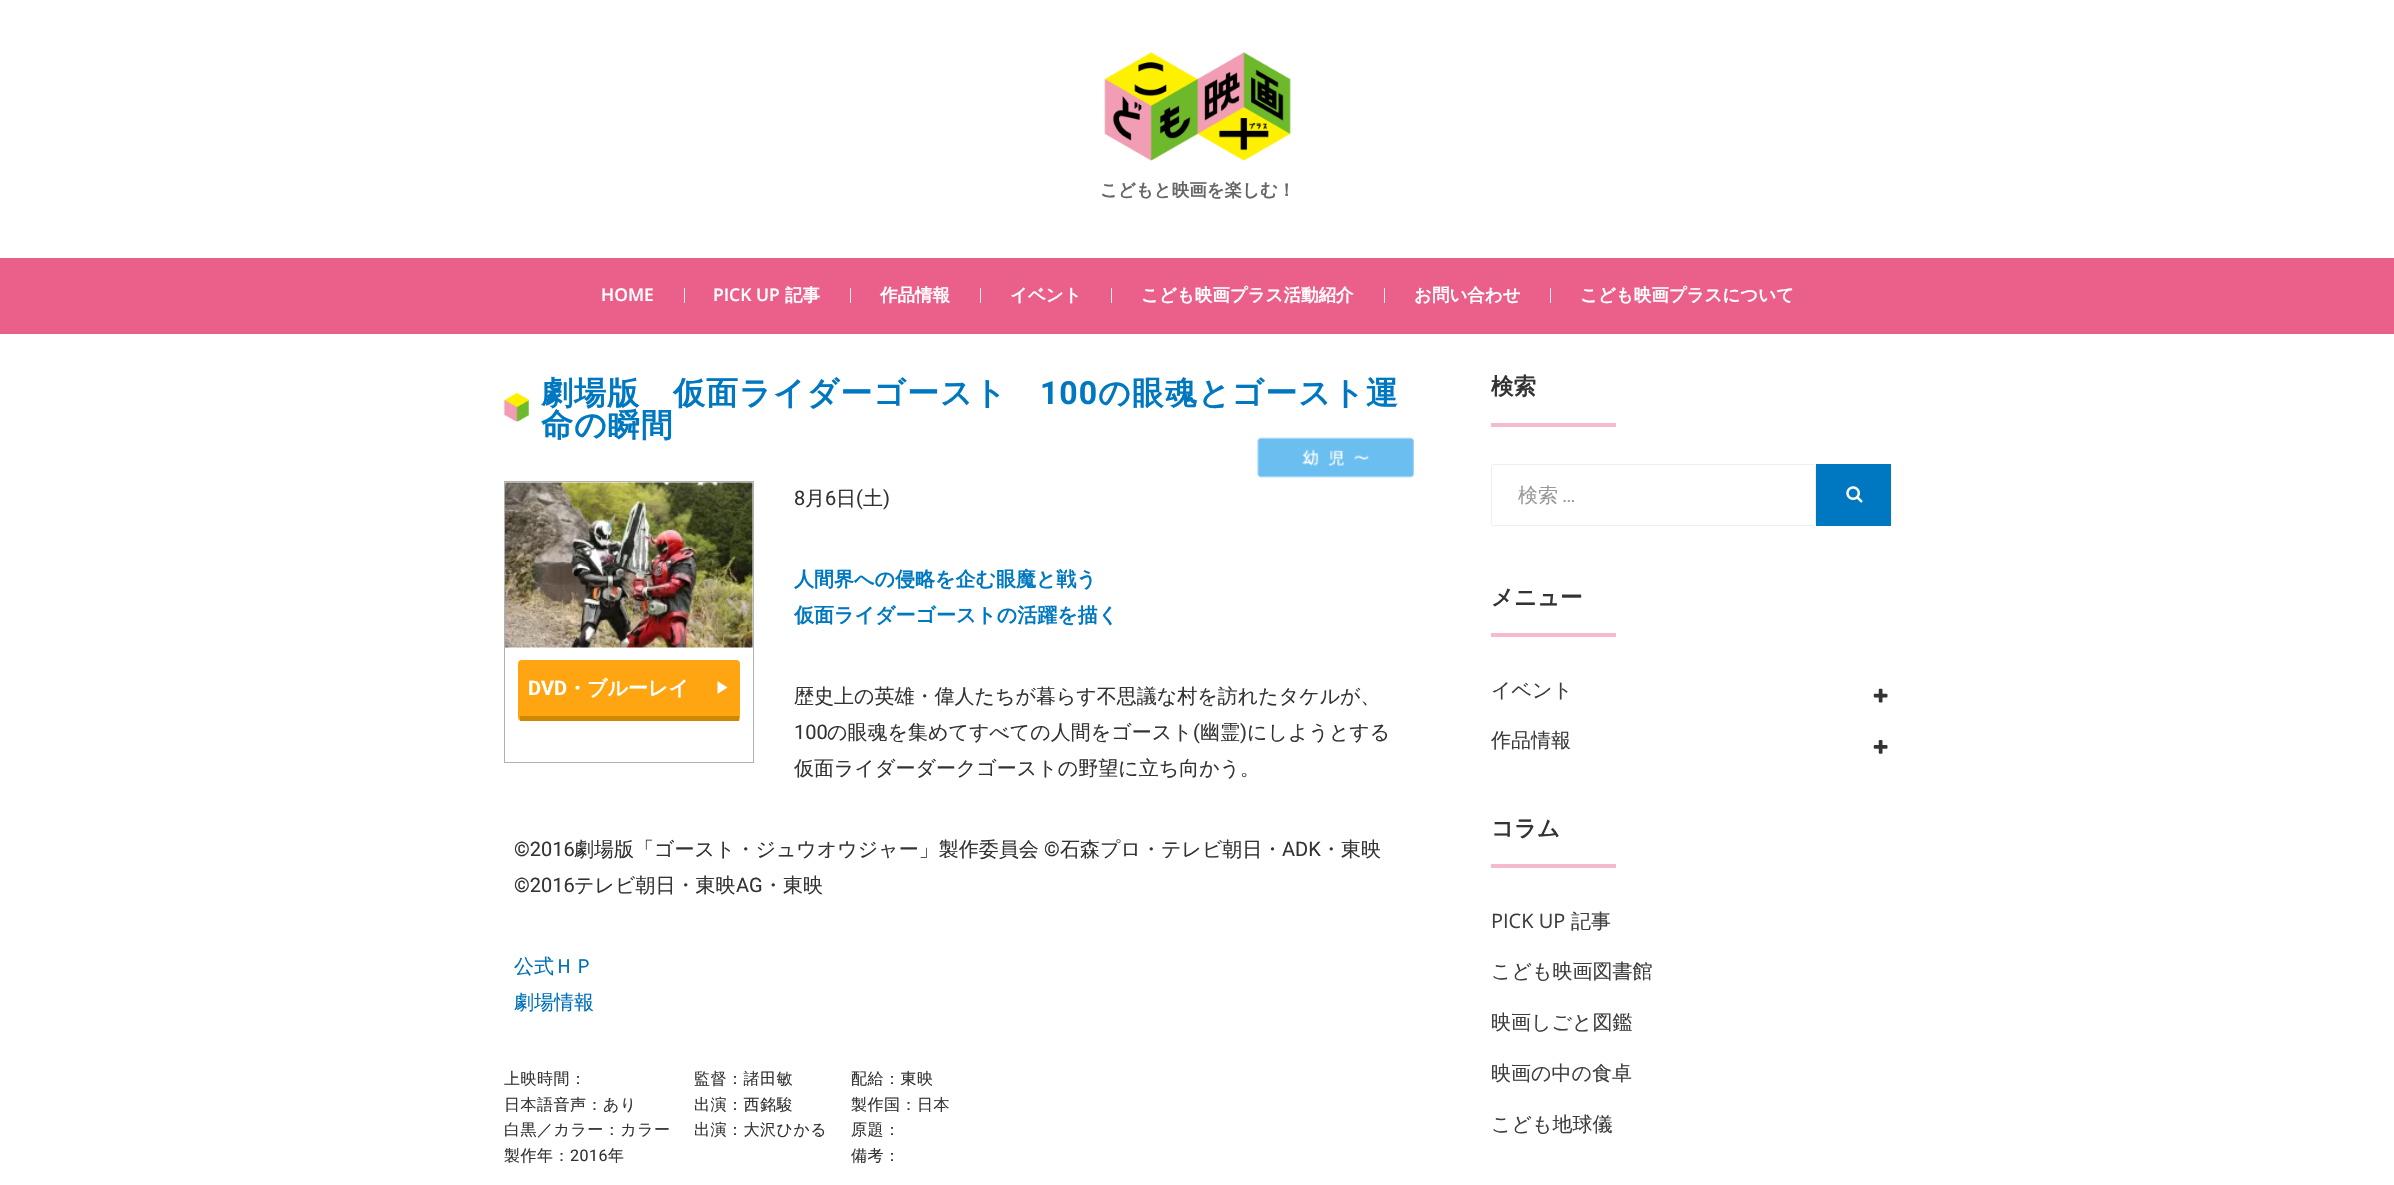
#include "include/core/SkBlurTypes.h"
#include "include/core/SkCanvas.h"
#include "include/core/SkData.h"
#include "include/core/SkFont.h"
#include "include/core/SkFontMgr.h"
#include "include/core/SkImage.h"
#include "include/core/SkMaskFilter.h"
#include "include/core/SkPaint.h"
#include "include/core/SkPathBuilder.h"
#include "include/core/SkTextBlob.h"
#include "include/effects/SkDashPathEffect.h"
#include "include/effects/SkGradientShader.h"
#include "include/utils/SkParsePath.h"

extern sk_sp<SkFontMgr> fontMgr;

void draw(SkCanvas* canvas) {
  SkPaint p;
  p.setAntiAlias(true);
  auto spacedText = [&](const char* s, float x, float y, const SkFont& font, const SkPaint& ink, float letter, float word) {
    std::vector<SkGlyphID> glyphs(font.countText(s, strlen(s), SkTextEncoding::kUTF8));
    std::vector<float> xs(glyphs.size());
    font.textToGlyphs(s, strlen(s), SkTextEncoding::kUTF8, glyphs);
    font.getXPos(glyphs, xs, x);
    float extra = 0;
    for (size_t i = 0; i < glyphs.size(); i++) {
      xs[i] += extra;
      extra += letter + word * (glyphs[i] == font.unicharToGlyph(' '));
    }
    canvas->drawTextBlob(SkTextBlob::MakeFromPosHGlyphs(glyphs, xs, y, font), 0, 0, ink);
  };
  canvas->clear(SK_ColorWHITE);
  canvas->drawImageRect(SkImages::DeferredFromEncodedData(SkData::MakeFromFileName("images/1.png")), SkRect::MakeLTRB(1104, 52, 1291, 161), SkSamplingOptions());
  p.setColor(SkColorSetRGB(234, 96, 139));
  canvas->drawRect(SkRect::MakeLTRB(0, 258, 2394, 334), p);
  p.setColor(SkColorSetRGB(238, 238, 238));
  canvas->drawRect(SkRect::MakeLTRB(684, 288, 685, 303), p);
  canvas->drawRect(SkRect::MakeLTRB(850, 288, 851, 303), p);
  canvas->drawRect(SkRect::MakeLTRB(980, 288, 981, 303), p);
  canvas->drawRect(SkRect::MakeLTRB(1111, 288, 1112, 303), p);
  canvas->drawRect(SkRect::MakeLTRB(1384, 288, 1385, 303), p);
  canvas->drawRect(SkRect::MakeLTRB(1550, 288, 1551, 303), p);
  canvas->drawImageRect(SkImages::DeferredFromEncodedData(SkData::MakeFromFileName("images/2.png")), SkRect::MakeLTRB(503, 392, 529, 422), SkSamplingOptions());
  p.setStyle(SkPaint::kStroke_Style);
  p.setStrokeWidth(1);
  p.setColor(SkColorSetRGB(177, 177, 177));
  canvas->drawRect(SkRect::MakeLTRB(504.5f, 481.5f, 753.5f, 762.5f), p);
  canvas->drawImageRect(SkImages::DeferredFromEncodedData(SkData::MakeFromFileName("images/3.png")), SkRect::MakeLTRB(1257, 437, 1414, 478), SkSamplingOptions());
  canvas->drawImageRect(SkImages::DeferredFromEncodedData(SkData::MakeFromFileName("images/4.png")), SkRect::MakeLTRB(505, 482, 753, 648), SkSamplingOptions());
  p.setStyle(SkPaint::kFill_Style);
  p.setColor(SkColorSetRGB(255, 165, 17));
  canvas->drawRoundRect(SkRect::MakeLTRB(518, 660, 740, 721), 4, 4, p);
  p.setColor(SkColorSetRGB(208, 135, 1));
  canvas->drawRect(SkRect::MakeLTRB(520, 716, 739, 721), p);
  p.setColor(SK_ColorWHITE);
  canvas->drawPath(SkPathBuilder().moveTo(717.5f, 694).lineTo(717.5f, 681).lineTo(727.5f, 687.5f).close().detach(), p);
  p.setColor(SkColorSetRGB(246, 186, 205));
  canvas->drawRect(SkRect::MakeLTRB(1491, 423, 1616, 427), p);
  p.setStyle(SkPaint::kStroke_Style);
  p.setColor(SkColorSetRGB(238, 238, 238));
  canvas->drawRoundRect(SkRect::MakeLTRB(1491.5f, 464.5f, 1815.5f, 525.5f), 2, 2, p);
  p.setStyle(SkPaint::kFill_Style);
  p.setColor(SkColorSetRGB(0, 120, 193));
  canvas->drawRect(SkRect::MakeLTRB(1816, 464, 1891, 526), p);
  canvas->drawImageRect(SkImages::DeferredFromEncodedData(SkData::MakeFromFileName("images/5.png")), SkRect::MakeLTRB(1846, 486, 1863, 503), SkSamplingOptions());
  p.setColor(SkColorSetRGB(246, 186, 205));
  canvas->drawRect(SkRect::MakeLTRB(1491, 633, 1616, 637), p);
  canvas->drawImageRect(SkImages::DeferredFromEncodedData(SkData::MakeFromFileName("images/6.png")), SkRect::MakeLTRB(1873, 688, 1888, 703), SkSamplingOptions());
  canvas->drawImageRect(SkImages::DeferredFromEncodedData(SkData::MakeFromFileName("images/7.png")), SkRect::MakeLTRB(1873, 740, 1888, 754), SkSamplingOptions());
  canvas->drawRect(SkRect::MakeLTRB(1491, 864, 1616, 868), p);
  SkFont font1(fontMgr->matchFamilyStyle("WenQuanYi Zen Hei", SkFontStyle::Bold()), 17.5f);
  font1.setSubpixel(true);
  p.setColor(SkColorSetRGB(102, 102, 102));
  canvas->drawString("こどもと映画を楽しむ！", 1100, 196, font1, p);
  SkFont font2(fontMgr->matchFamilyStyle("Open Sans", SkFontStyle(600, SkFontStyle::kNormal_Width, SkFontStyle::kUpright_Slant)), 17.5f);
  font2.setSubpixel(true);
  p.setColor(SK_ColorWHITE);
  canvas->drawString("HOME", 601, 301, font2, p);
  canvas->drawString("PICK UP", 713, 301, font2, p);
  canvas->drawString("記事", 785, 301, font1, p);
  canvas->drawString("作品情報", 880, 301, font1, p);
  canvas->drawString("イベント", 1010, 301, font1, p);
  canvas->drawString("こども映画プラス活動紹介", 1141, 301, font1, p);
  canvas->drawString("お問い合わせ", 1414, 301, font1, p);
  canvas->drawString("こども映画プラスについて", 1580, 301, font1, p);
  SkFont font3(fontMgr->matchFamilyStyle("WenQuanYi Zen Hei", SkFontStyle::Bold()), 32);
  font3.setSubpixel(true);
  p.setColor(SkColorSetRGB(0, 120, 193));
  spacedText("劇場版　仮面ライダーゴースト", 541, 404, font3, p, 1, 0);
  SkFont font4(fontMgr->matchFamilyStyle("Roboto", SkFontStyle::Bold()), 32);
  font4.setSubpixel(true);
  spacedText("100", 1040, 404, font4, p, 1, 0);
  spacedText("の眼魂とゴースト運", 1098, 404, font3, p, 1, 0);
  spacedText("命の瞬間", 541, 436, font3, p, 1, 0);
  SkFont font5(fontMgr->matchFamilyStyle("Roboto", SkFontStyle::Normal()), 20);
  font5.setSubpixel(true);
  p.setColor(SkColorSetRGB(51, 51, 51));
  canvas->drawString("8", 794, 505, font5, p);
  SkFont font6(fontMgr->matchFamilyStyle("WenQuanYi Zen Hei", SkFontStyle(500, SkFontStyle::kNormal_Width, SkFontStyle::kUpright_Slant)), 20);
  font6.setSubpixel(true);
  canvas->drawString("月", 805, 505, font6, p);
  canvas->drawString("6", 825, 505, font5, p);
  canvas->drawString("日", 836, 505, font6, p);
  canvas->drawString("(", 856, 505, font5, p);
  canvas->drawString("土", 863, 505, font6, p);
  canvas->drawString(")", 883, 505, font5, p);
  SkFont font7(fontMgr->matchFamilyStyle("WenQuanYi Zen Hei", SkFontStyle::Bold()), 20);
  font7.setSubpixel(true);
  p.setColor(SkColorSetRGB(0, 120, 193));
  canvas->drawString("人間界への侵略を企む眼魔と戦う", 794, 586, font7, p);
  canvas->drawString("仮面ライダーゴーストの活躍を描く", 794, 622, font7, p);
  SkFont font8(fontMgr->matchFamilyStyle("Roboto", SkFontStyle::Bold()), 20);
  font8.setSubpixel(true);
  p.setColor(SK_ColorWHITE);
  canvas->drawString("DVD", 528, 695, font8, p);
  canvas->drawString("・ブルーレイ", 567, 695, font7, p);
  p.setColor(SkColorSetRGB(51, 51, 51));
  canvas->drawString("歴史上の英雄・偉人たちが暮らす不思議な村を訪れたタケルが、", 794, 703, font6, p);
  canvas->drawString("100", 794, 739, font5, p);
  canvas->drawString("の眼魂を集めてすべての人間をゴースト", 827, 739, font6, p);
  canvas->drawString("(", 1193, 739, font5, p);
  canvas->drawString("幽霊", 1200, 739, font6, p);
  canvas->drawString(")", 1240, 739, font5, p);
  canvas->drawString("にしようとする", 1247, 739, font6, p);
  canvas->drawString("仮面ライダーダークゴーストの野望に立ち向かう。", 794, 775, font6, p);
  canvas->drawString("©2016", 514, 856, font5, p);
  canvas->drawString("劇場版「ゴースト・ジュウオウジャー」製作委員会", 574, 856, font6, p);
  canvas->drawString("©", 1044, 856, font5, p);
  canvas->drawString("石森プロ・テレビ朝日・", 1060, 856, font6, p);
  canvas->drawString("ADK", 1282, 856, font5, p);
  canvas->drawString("・東映", 1321, 856, font6, p);
  canvas->drawString("©2016", 514, 892, font5, p);
  canvas->drawString("テレビ朝日・東映", 574, 892, font6, p);
  canvas->drawString("AG", 736, 892, font5, p);
  canvas->drawString("・東映", 763, 892, font6, p);
  p.setColor(SkColorSetRGB(0, 113, 183));
  canvas->drawString("公式ＨＰ", 514, 973, font6, p);
  canvas->drawString("劇場情報", 514, 1009, font6, p);
  SkFont font9(fontMgr->matchFamilyStyle("WenQuanYi Zen Hei", SkFontStyle(500, SkFontStyle::kNormal_Width, SkFontStyle::kUpright_Slant)), 16);
  font9.setSubpixel(true);
  p.setColor(SkColorSetRGB(51, 51, 51));
  spacedText("上映時間：", 504, 1084, font9, p, 0.5f, 0);
  spacedText("日本語音声：あり", 504, 1110, font9, p, 0.5f, 0);
  spacedText("白黒／カラー：カラー", 504, 1135, font9, p, 0.5f, 0);
  spacedText("製作年：", 504, 1161, font9, p, 0.5f, 0);
  SkFont font10(fontMgr->matchFamilyStyle("Roboto", SkFontStyle::Normal()), 16);
  font10.setSubpixel(true);
  spacedText("2016", 570, 1161, font10, p, 0.5f, 0);
  spacedText("年", 608, 1161, font9, p, 0.5f, 0);
  spacedText("監督：諸田敏", 694, 1084, font9, p, 0.5f, 0);
  spacedText("出演：西銘駿", 694, 1110, font9, p, 0.5f, 0);
  spacedText("出演：大沢ひかる", 694, 1135, font9, p, 0.5f, 0);
  spacedText("配給：東映", 851, 1084, font9, p, 0.5f, 0);
  spacedText("製作国：日本", 851, 1110, font9, p, 0.5f, 0);
  spacedText("原題：", 851, 1135, font9, p, 0.5f, 0);
  spacedText("備考：", 851, 1161, font9, p, 0.5f, 0);
  SkFont font11(fontMgr->matchFamilyStyle("WenQuanYi Zen Hei", SkFontStyle::Bold()), 22.5f);
  font11.setSubpixel(true);
  canvas->drawString("検索", 1491, 394, font11, p);
  p.setColor(SkColorSetRGB(153, 153, 153));
  canvas->drawString("検索", 1518, 502, font6, p);
  canvas->drawString("…", 1562, 502, font5, p);
  p.setColor(SkColorSetRGB(51, 51, 51));
  canvas->drawString("メニュー", 1491, 605, font11, p);
  p.setColor(SkColorSetRGB(61, 61, 61));
  canvas->drawString("イベント", 1491, 697, font6, p);
  canvas->drawString("作品情報", 1491, 747, font6, p);
  p.setColor(SkColorSetRGB(51, 51, 51));
  canvas->drawString("コラム", 1491, 836, font11, p);
  SkFont font12(fontMgr->matchFamilyStyle("Open Sans", SkFontStyle::Normal()), 20);
  font12.setSubpixel(true);
  p.setColor(SkColorSetRGB(61, 61, 61));
  canvas->drawString("PICK UP", 1491, 928, font12, p);
  canvas->drawString("記事", 1571, 928, font6, p);
  canvas->drawString("こども映画図書館", 1491, 978, font6, p);
  canvas->drawString("映画しごと図鑑", 1491, 1029, font6, p);
  canvas->drawString("映画の中の食卓", 1491, 1080, font6, p);
  canvas->drawString("こども地球儀", 1491, 1131, font6, p);
}
